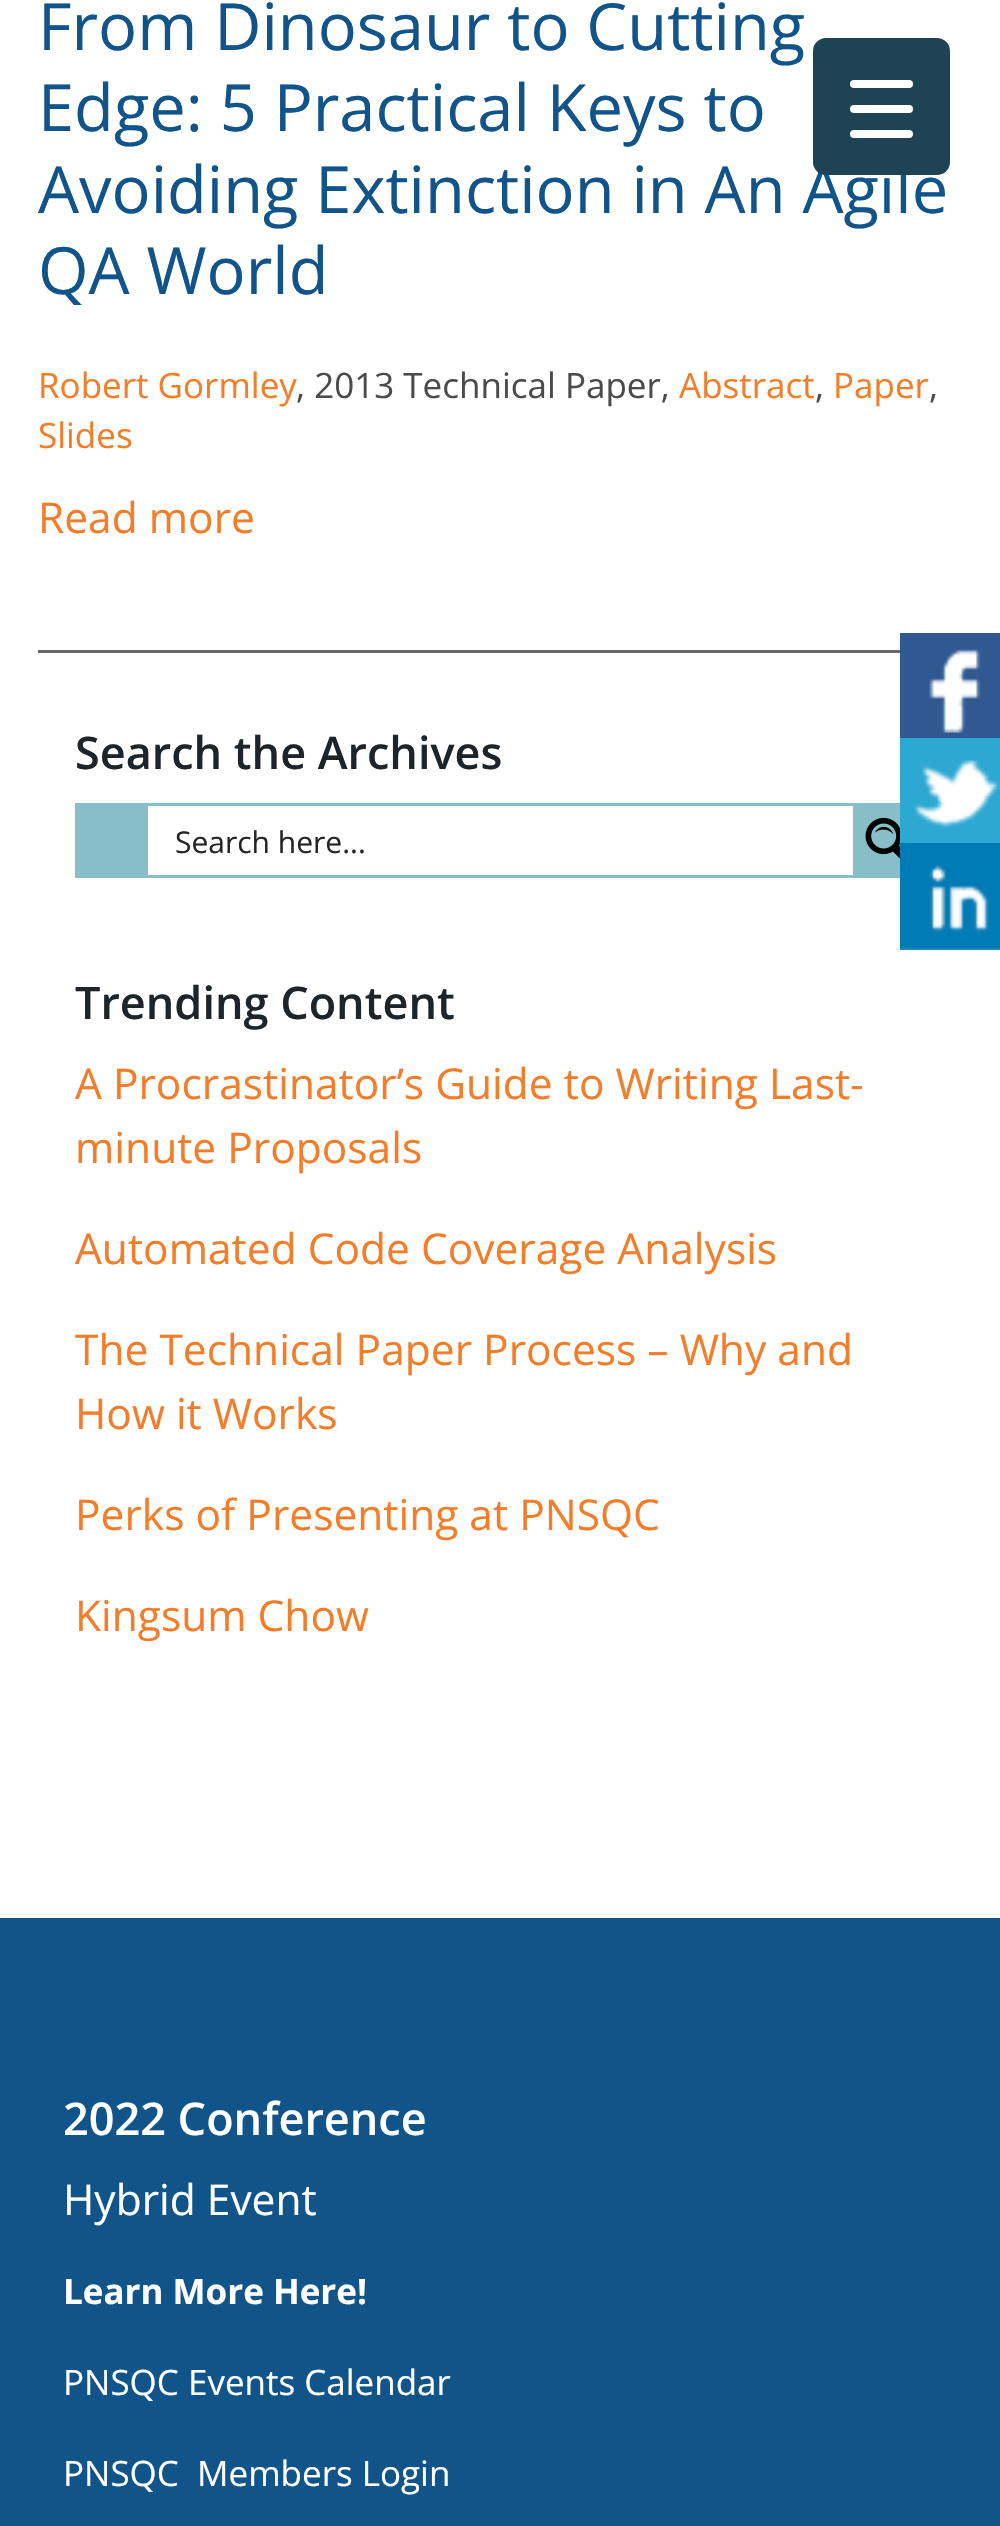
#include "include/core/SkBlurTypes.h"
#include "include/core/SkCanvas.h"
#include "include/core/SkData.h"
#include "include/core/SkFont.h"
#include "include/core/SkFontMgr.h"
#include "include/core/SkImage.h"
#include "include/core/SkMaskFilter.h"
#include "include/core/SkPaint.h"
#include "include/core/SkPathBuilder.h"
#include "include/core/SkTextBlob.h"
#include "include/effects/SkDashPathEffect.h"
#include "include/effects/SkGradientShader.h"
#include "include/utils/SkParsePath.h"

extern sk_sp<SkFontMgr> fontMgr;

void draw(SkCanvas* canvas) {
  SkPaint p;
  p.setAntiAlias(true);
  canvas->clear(SK_ColorWHITE);
  p.setColor(SkColorSetRGB(102, 102, 102));
  canvas->drawRect(SkRect::MakeLTRB(38, 650, 900, 653), p);
  p.setStyle(SkPaint::kStroke_Style);
  p.setStrokeWidth(3);
  p.setColor(SkColorSetRGB(135, 190, 199));
  canvas->drawRect(SkRect::MakeLTRB(76.5f, 804.5f, 923.5f, 876.5f), p);
  p.setStyle(SkPaint::kFill_Style);
  canvas->drawRect(SkRect::MakeLTRB(78, 806, 148, 875), p);
  canvas->drawRect(SkRect::MakeLTRB(853, 806, 900, 875), p);
  canvas->drawImageRect(SkImages::DeferredFromEncodedData(SkData::MakeFromFileName("images/1.png")), SkRect::MakeLTRB(865, 817, 900, 859), SkSamplingOptions());
  p.setColor(SkColorSetRGB(17, 84, 138));
  canvas->drawRect(SkRect::MakeLTRB(0, 1918, 1000, 2526), p);
  p.setColor(SkColorSetRGB(48, 88, 145));
  canvas->drawRect(SkRect::MakeLTRB(900, 633, 1000, 738), p);
  canvas->drawImageRect(SkImages::DeferredFromEncodedData(SkData::MakeFromFileName("images/2.png")), SkRect::MakeLTRB(929, 649, 981, 733), SkSamplingOptions());
  p.setColor(SkColorSetRGB(44, 168, 210));
  canvas->drawRect(SkRect::MakeLTRB(900, 738, 1000, 843), p);
  canvas->drawImageRect(SkImages::DeferredFromEncodedData(SkData::MakeFromFileName("images/3.png")), SkRect::MakeLTRB(914, 760, 1000, 828), SkSamplingOptions());
  p.setColor(SkColorSetRGB(0, 123, 182));
  canvas->drawRect(SkRect::MakeLTRB(900, 843, 1000, 948), p);
  p.setColor(SkColorSetRGB(26, 136, 189));
  canvas->drawRect(SkRect::MakeLTRB(900, 948, 1000, 950), p);
  canvas->drawImageRect(SkImages::DeferredFromEncodedData(SkData::MakeFromFileName("images/4.png")), SkRect::MakeLTRB(929, 864, 989, 932), SkSamplingOptions());
  SkFont font1(fontMgr->matchFamilyStyle("Open Sans", SkFontStyle::Normal()), 65);
  font1.setSubpixel(true);
  p.setColor(SkColorSetRGB(17, 84, 138));
  canvas->drawString("From Dinosaur to Cutting", 38, 50, font1, p);
  canvas->drawString("Edge: 5 Practical Keys to", 38, 131, font1, p);
  canvas->drawString("Avoiding Extinction in An Agile", 38, 213, font1, p);
  canvas->drawString("QA World", 38, 294, font1, p);
  SkFont font2(fontMgr->matchFamilyStyle("Open Sans", SkFontStyle::Normal()), 35);
  font2.setSubpixel(true);
  p.setColor(SkColorSetRGB(244, 125, 42));
  canvas->drawString("Robert Gormley", 38, 398, font2, p);
  p.setColor(SkColorSetRGB(75, 75, 75));
  canvas->drawString(", 2013 Technical Paper,", 296, 398, font2, p);
  p.setColor(SkColorSetRGB(244, 125, 42));
  canvas->drawString("Abstract", 679, 398, font2, p);
  p.setColor(SkColorSetRGB(75, 75, 75));
  canvas->drawString(",", 815, 398, font2, p);
  p.setColor(SkColorSetRGB(244, 125, 42));
  canvas->drawString("Paper", 833, 398, font2, p);
  p.setColor(SkColorSetRGB(75, 75, 75));
  canvas->drawString(",", 929, 398, font2, p);
  p.setColor(SkColorSetRGB(244, 125, 42));
  canvas->drawString("Slides", 38, 448, font2, p);
  SkFont font3(fontMgr->matchFamilyStyle("Open Sans", SkFontStyle::Normal()), 42.5f);
  font3.setSubpixel(true);
  canvas->drawString("Read more", 38, 533, font3, p);
  SkFont font4(fontMgr->matchFamilyStyle("Open Sans", SkFontStyle(600, SkFontStyle::kNormal_Width, SkFontStyle::kUpright_Slant)), 45);
  font4.setSubpixel(true);
  p.setColor(SkColorSetRGB(30, 37, 42));
  canvas->drawString("Search the Archives", 75, 769, font4, p);
  SkFont font5(fontMgr->matchFamilyStyle("Open Sans", SkFontStyle::Normal()), 30);
  font5.setSubpixel(true);
  p.setColor(SkColorSetRGB(38, 38, 38));
  canvas->drawString("Search here...", 175, 853, font5, p);
  p.setColor(SkColorSetRGB(30, 37, 42));
  canvas->drawString("Trending Content", 75, 1019, font4, p);
  p.setColor(SkColorSetRGB(244, 125, 42));
  canvas->drawString("A Procrastinator’s Guide to Writing Last-", 75, 1099, font3, p);
  canvas->drawString("minute Proposals", 75, 1163, font3, p);
  canvas->drawString("Automated Code Coverage Analysis", 75, 1264, font3, p);
  canvas->drawString("The Technical Paper Process – Why and", 75, 1365, font3, p);
  canvas->drawString("How it Works", 75, 1429, font3, p);
  canvas->drawString("Perks of Presenting at PNSQC", 75, 1530, font3, p);
  canvas->drawString("Kingsum Chow", 75, 1631, font3, p);
  p.setColor(SK_ColorWHITE);
  canvas->drawString("2022 Conference", 63, 2135, font4, p);
  canvas->drawString("Hybrid Event", 63, 2215, font3, p);
  SkFont font6(fontMgr->matchFamilyStyle("Open Sans", SkFontStyle::Bold()), 35);
  font6.setSubpixel(true);
  canvas->drawString("Learn More Here!", 63, 2304, font6, p);
  canvas->drawString("PNSQC Events Calendar", 63, 2395, font2, p);
  canvas->drawString("PNSQC  Members Login", 63, 2486, font2, p);
  p.setColor(SkColorSetRGB(29, 67, 84));
  canvas->drawRoundRect(SkRect::MakeLTRB(813, 38, 950, 175), 13, 13, p);
  p.setColor(SK_ColorWHITE);
  canvas->drawRoundRect(SkRect::MakeLTRB(850, 105, 913, 113), 4, 4, p);
  canvas->drawRoundRect(SkRect::MakeLTRB(850, 80, 913, 88), 4, 4, p);
  canvas->drawRoundRect(SkRect::MakeLTRB(850, 130, 913, 138), 4, 4, p);
}
